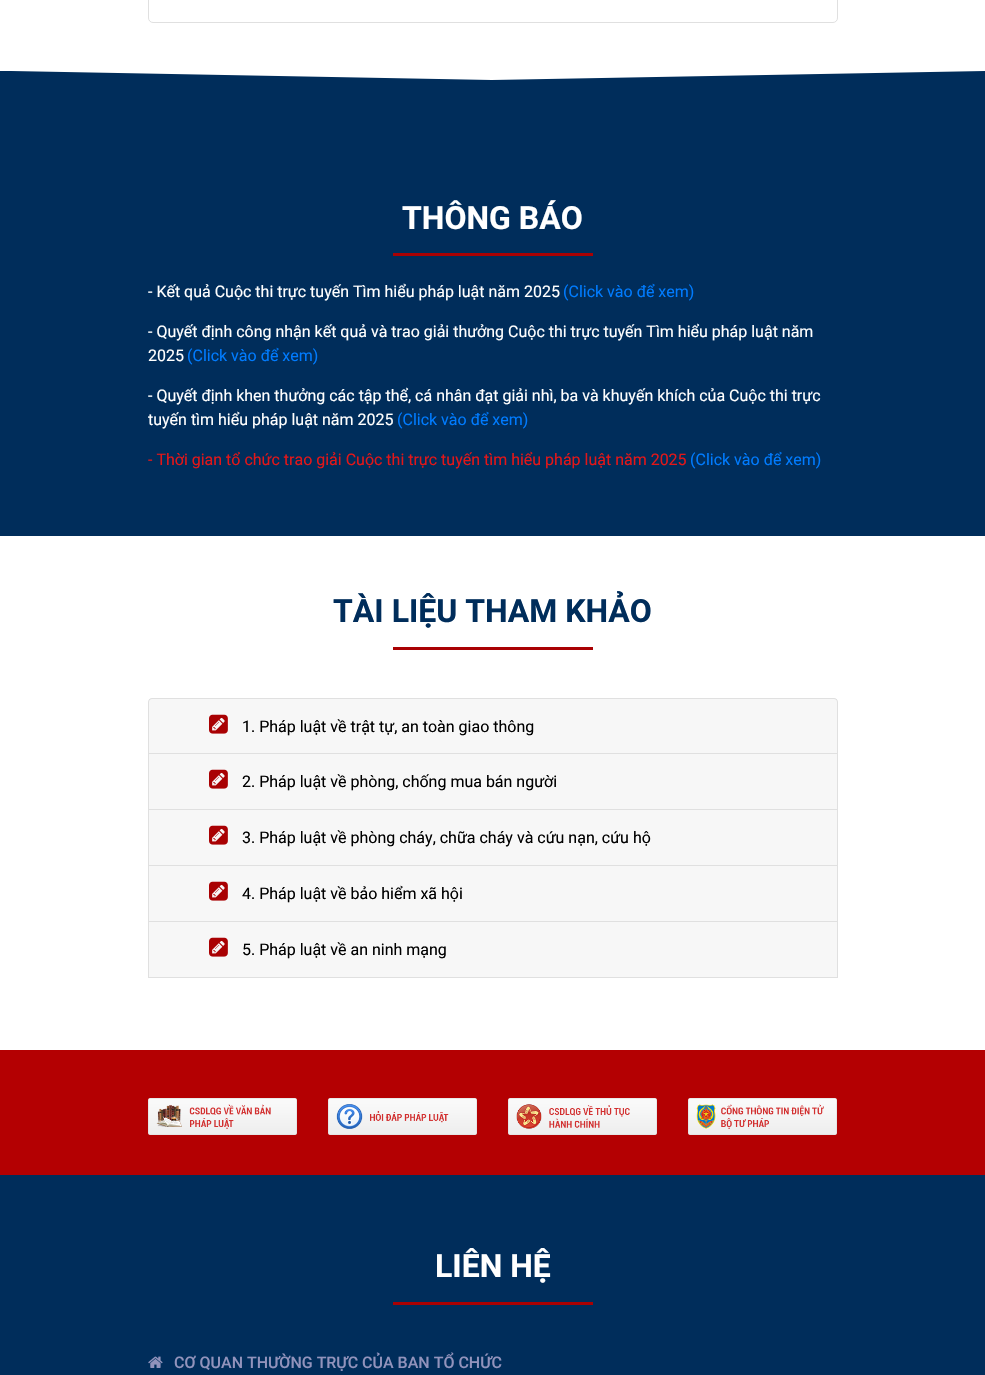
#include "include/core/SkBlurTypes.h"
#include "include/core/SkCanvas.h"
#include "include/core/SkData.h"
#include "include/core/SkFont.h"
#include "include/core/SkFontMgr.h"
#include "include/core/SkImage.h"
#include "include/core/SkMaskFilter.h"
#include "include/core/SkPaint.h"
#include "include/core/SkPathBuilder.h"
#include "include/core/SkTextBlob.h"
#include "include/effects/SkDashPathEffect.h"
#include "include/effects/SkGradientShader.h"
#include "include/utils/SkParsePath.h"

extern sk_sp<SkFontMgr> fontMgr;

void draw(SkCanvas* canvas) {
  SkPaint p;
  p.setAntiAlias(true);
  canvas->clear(SK_ColorWHITE);
  p.setStyle(SkPaint::kStroke_Style);
  p.setStrokeWidth(1);
  p.setColor(SkColorSetRGB(224, 224, 224));
  canvas->drawRoundRect(SkRect::MakeLTRB(148.5f, -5.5f, 837.5f, 22.5f), 4.5f, 4.5f, p);
  p.setStyle(SkPaint::kFill_Style);
  p.setColor(SkColorSetRGB(0, 45, 91));
  canvas->drawPath(SkPathBuilder().moveTo(0, 71).lineTo(0, 536).lineTo(985, 536).lineTo(985, 71).lineTo(492, 80).lineTo(11, 71).close().detach(), p);
  p.setColor(SkColorSetRGB(169, 1, 3));
  canvas->drawRect(SkRect::MakeLTRB(393, 253, 593, 256), p);
  canvas->drawRect(SkRect::MakeLTRB(393, 647, 593, 650), p);
  p.setColor(SkColorSetRGB(224, 224, 224));
  canvas->drawPath(SkPathBuilder(SkPathFillType::kEvenOdd).moveTo(152, 698).lineTo(834, 698).cubicTo(836, 698, 838, 700, 838, 702).lineTo(838, 753).lineTo(148, 753).lineTo(148, 702).cubicTo(148, 700, 150, 698, 152, 698).close().moveTo(152, 699).lineTo(834, 699).cubicTo(836, 699, 837, 700, 837, 702).lineTo(837, 753).lineTo(149, 753).lineTo(149, 702).cubicTo(149, 700, 150, 699, 152, 699).close().detach(), p);
  p.setColor(SkColorSetARGB(8, 0, 0, 0));
  canvas->drawRect(SkRect::MakeLTRB(149, 699, 837, 753), p);
  canvas->drawImageRect(SkImages::DeferredFromEncodedData(SkData::MakeFromFileName("images/1.png")), SkRect::MakeLTRB(209, 714, 228, 734), SkSamplingOptions());
  p.setColor(SkColorSetRGB(224, 224, 224));
  canvas->drawRect(SkRect::MakeLTRB(148, 753, 838, 754), p);
  canvas->drawRect(SkRect::MakeLTRB(837, 753, 838, 809), p);
  canvas->drawRect(SkRect::MakeLTRB(148, 753, 149, 809), p);
  p.setColor(SkColorSetRGB(247, 247, 247));
  canvas->drawRect(SkRect::MakeLTRB(149, 754, 837, 809), p);
  canvas->drawImageRect(SkImages::DeferredFromEncodedData(SkData::MakeFromFileName("images/2.png")), SkRect::MakeLTRB(209, 769, 228, 789), SkSamplingOptions());
  p.setColor(SkColorSetRGB(224, 224, 224));
  canvas->drawRect(SkRect::MakeLTRB(148, 809, 838, 810), p);
  canvas->drawRect(SkRect::MakeLTRB(837, 809, 838, 865), p);
  canvas->drawRect(SkRect::MakeLTRB(148, 809, 149, 865), p);
  p.setColor(SkColorSetRGB(247, 247, 247));
  canvas->drawRect(SkRect::MakeLTRB(149, 810, 837, 865), p);
  canvas->drawImageRect(SkImages::DeferredFromEncodedData(SkData::MakeFromFileName("images/2.png")), SkRect::MakeLTRB(209, 825, 228, 845), SkSamplingOptions());
  p.setColor(SkColorSetRGB(224, 224, 224));
  canvas->drawRect(SkRect::MakeLTRB(148, 865, 838, 866), p);
  canvas->drawRect(SkRect::MakeLTRB(837, 865, 838, 921), p);
  canvas->drawRect(SkRect::MakeLTRB(148, 865, 149, 921), p);
  p.setColor(SkColorSetRGB(247, 247, 247));
  canvas->drawRect(SkRect::MakeLTRB(149, 866, 837, 921), p);
  canvas->drawImageRect(SkImages::DeferredFromEncodedData(SkData::MakeFromFileName("images/2.png")), SkRect::MakeLTRB(209, 881, 228, 901), SkSamplingOptions());
  p.setColor(SkColorSetRGB(224, 224, 224));
  canvas->drawRect(SkRect::MakeLTRB(148, 921, 838, 922), p);
  canvas->drawRect(SkRect::MakeLTRB(837, 921, 838, 977), p);
  canvas->drawRect(SkRect::MakeLTRB(148, 921, 149, 977), p);
  p.setColor(SkColorSetRGB(247, 247, 247));
  canvas->drawRect(SkRect::MakeLTRB(149, 922, 837, 977), p);
  canvas->drawImageRect(SkImages::DeferredFromEncodedData(SkData::MakeFromFileName("images/2.png")), SkRect::MakeLTRB(209, 937, 228, 957), SkSamplingOptions());
  p.setColor(SkColorSetRGB(224, 224, 224));
  canvas->drawRect(SkRect::MakeLTRB(148, 977, 838, 978), p);
  p.setColor(SkColorSetRGB(180, 0, 2));
  canvas->drawRect(SkRect::MakeLTRB(0, 1050, 985, 1175), p);
  canvas->drawImageRect(SkImages::DeferredFromEncodedData(SkData::MakeFromFileName("images/3.png")), SkRect::MakeLTRB(148, 1098, 297, 1135), SkSamplingOptions());
  canvas->drawImageRect(SkImages::DeferredFromEncodedData(SkData::MakeFromFileName("images/4.png")), SkRect::MakeLTRB(328, 1098, 477, 1135), SkSamplingOptions());
  canvas->drawImageRect(SkImages::DeferredFromEncodedData(SkData::MakeFromFileName("images/5.png")), SkRect::MakeLTRB(508, 1098, 657, 1135), SkSamplingOptions());
  canvas->drawImageRect(SkImages::DeferredFromEncodedData(SkData::MakeFromFileName("images/6.png")), SkRect::MakeLTRB(688, 1098, 837, 1135), SkSamplingOptions());
  p.setColor(SkColorSetRGB(0, 45, 91));
  canvas->drawRect(SkRect::MakeLTRB(0, 1175, 985, 1375), p);
  p.setColor(SkColorSetRGB(169, 1, 3));
  canvas->drawRect(SkRect::MakeLTRB(393, 1302, 593, 1305), p);
  canvas->drawImageRect(SkImages::DeferredFromEncodedData(SkData::MakeFromFileName("images/7.png")), SkRect::MakeLTRB(148, 1356, 163, 1368), SkSamplingOptions());
  SkFont font1(fontMgr->matchFamilyStyle("Roboto", SkFontStyle::Bold()), 32);
  font1.setSubpixel(true);
  p.setColor(SK_ColorWHITE);
  canvas->drawString("THÔNG BÁO", 402, 229, font1, p);
  SkFont font2(fontMgr->matchFamilyStyle("Roboto", SkFontStyle::Normal()), 16);
  font2.setSubpixel(true);
  canvas->drawString("- Kết quả Cuộc thi trực tuyến Tìm hiểu pháp luật năm 2025", 148, 297, font2, p);
  p.setColor(SkColorSetRGB(0, 123, 255));
  canvas->drawString("(Click vào để xem)", 563, 297, font2, p);
  p.setColor(SK_ColorWHITE);
  canvas->drawString("- Quyết định công nhận kết quả và trao giải thưởng Cuộc thi trực tuyến Tìm hiểu pháp luật năm", 148, 337, font2, p);
  canvas->drawString("2025", 148, 361, font2, p);
  p.setColor(SkColorSetRGB(0, 123, 255));
  canvas->drawString("(Click vào để xem)", 187, 361, font2, p);
  p.setColor(SK_ColorWHITE);
  canvas->drawString("- Quyết định khen thưởng các tập thể, cá nhân đạt giải nhì, ba và khuyến khích của Cuộc thi trực", 148, 401, font2, p);
  canvas->drawString("tuyến tìm hiểu pháp luật năm 2025", 148, 425, font2, p);
  p.setColor(SkColorSetRGB(0, 123, 255));
  canvas->drawString("(Click vào để xem)", 397, 425, font2, p);
  p.setColor(SkColorSetRGB(227, 22, 24));
  canvas->drawString("- Thời gian tổ chức trao giải Cuộc thi trực tuyến tìm hiểu pháp luật năm 2025", 148, 465, font2, p);
  p.setColor(SkColorSetRGB(0, 123, 255));
  canvas->drawString("(Click vào để xem)", 690, 465, font2, p);
  p.setColor(SkColorSetRGB(0, 45, 91));
  canvas->drawString("TÀI LIỆU THAM KHẢO", 333, 622, font1, p);
  p.setColor(SK_ColorBLACK);
  canvas->drawString("1. Pháp luật về trật tự, an toàn giao thông", 242, 732, font2, p);
  canvas->drawString("2. Pháp luật về phòng, chống mua bán người", 242, 787, font2, p);
  canvas->drawString("3. Pháp luật về phòng cháy, chữa cháy và cứu nạn, cứu hộ", 242, 843, font2, p);
  canvas->drawString("4. Pháp luật về bảo hiểm xã hội", 242, 899, font2, p);
  canvas->drawString("5. Pháp luật về an ninh mạng", 242, 955, font2, p);
  p.setColor(SK_ColorWHITE);
  canvas->drawString("LIÊN HỆ", 435, 1277, font1, p);
  SkFont font3(fontMgr->matchFamilyStyle("Roboto", SkFontStyle(500, SkFontStyle::kNormal_Width, SkFontStyle::kUpright_Slant)), 16);
  font3.setSubpixel(true);
  p.setColor(SkColorSetRGB(146, 147, 188));
  canvas->drawString("CƠ QUAN THƯỜNG TRỰC CỦA BAN TỔ CHỨC", 174, 1368, font3, p);
}
